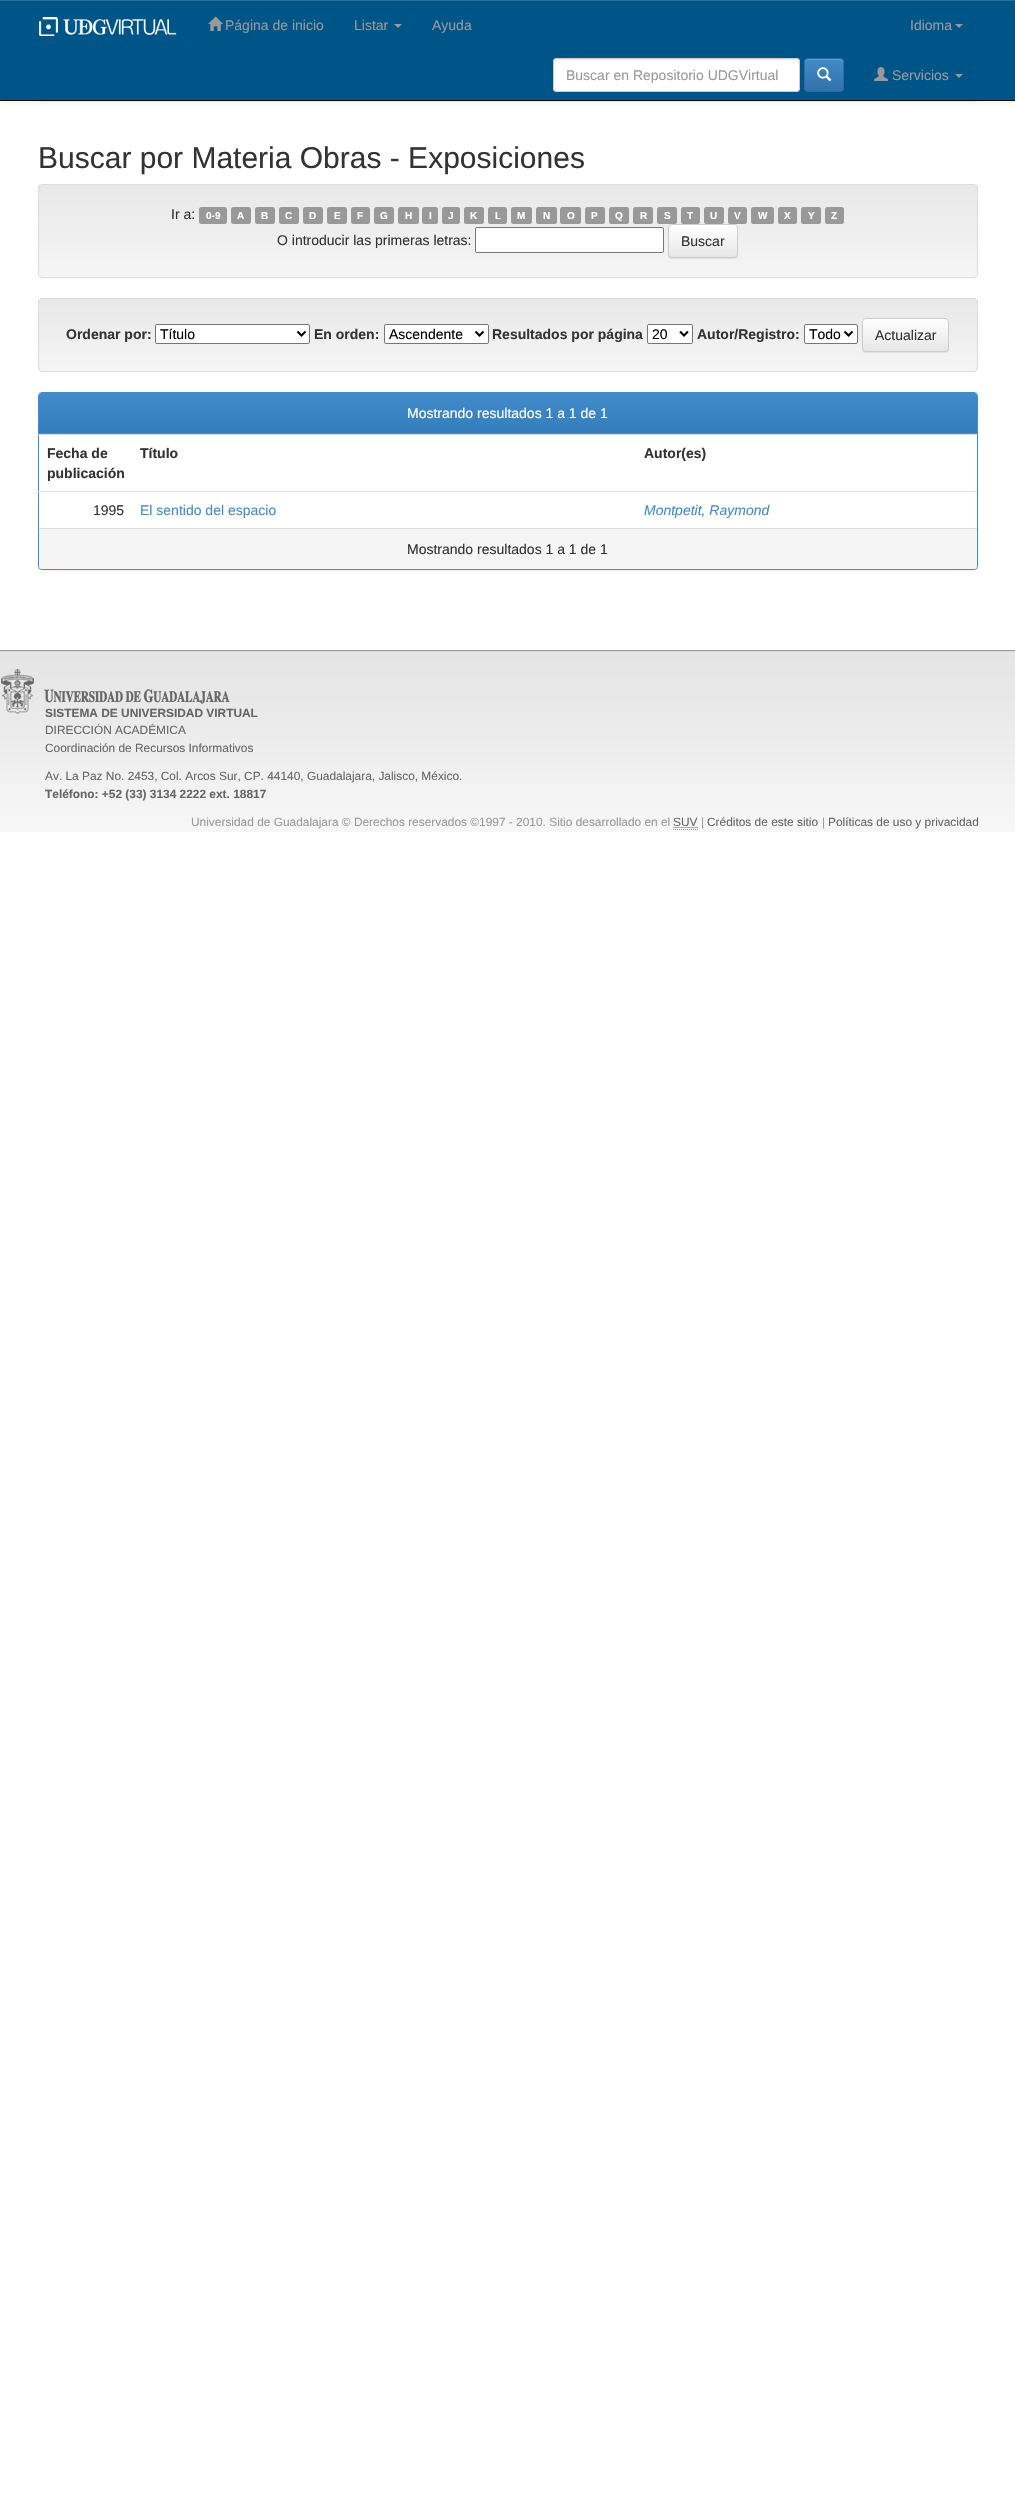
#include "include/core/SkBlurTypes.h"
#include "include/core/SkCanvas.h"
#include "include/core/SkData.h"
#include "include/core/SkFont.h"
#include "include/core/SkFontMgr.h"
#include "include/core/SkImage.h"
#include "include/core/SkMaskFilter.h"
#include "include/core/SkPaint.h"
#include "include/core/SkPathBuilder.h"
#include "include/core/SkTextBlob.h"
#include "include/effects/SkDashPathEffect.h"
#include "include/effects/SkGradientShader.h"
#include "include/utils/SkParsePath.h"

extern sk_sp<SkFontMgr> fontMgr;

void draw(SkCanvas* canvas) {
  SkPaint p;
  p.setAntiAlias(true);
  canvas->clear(SK_ColorWHITE);
  p.setColor(SkColorSetARGB(18, 0, 0, 0));
  p.setMaskFilter(SkMaskFilter::MakeBlur(kNormal_SkBlurStyle, 2.5f));
  canvas->drawRect(SkRect::MakeLTRB(0, 1, 1015, 102), p);
  p.setMaskFilter(nullptr);
  p.setMaskFilter(SkMaskFilter::MakeBlur(kNormal_SkBlurStyle, 0.5f));
  canvas->drawRoundRect(SkRect::MakeLTRB(38, 66, 978, 102), 4, 4, p);
  p.setMaskFilter(nullptr);
  p.setColor(SkColorSetRGB(0, 85, 136));
  canvas->drawRect(SkRect::MakeLTRB(0, 1, 1015, 100), p);
  p.setColor(SkColorSetRGB(38, 111, 154));
  canvas->drawRect(SkRect::MakeLTRB(0, 0, 1015, 1), p);
  p.setColor(SkColorSetRGB(8, 8, 8));
  canvas->drawRect(SkRect::MakeLTRB(0, 100, 1015, 101), p);
  canvas->drawImageRect(SkImages::DeferredFromEncodedData(SkData::MakeFromFileName("images/1.png")), SkRect::MakeLTRB(39, 17, 177, 36), SkSamplingOptions());
  canvas->drawImageRect(SkImages::DeferredFromEncodedData(SkData::MakeFromFileName("images/2.png")), SkRect::MakeLTRB(208, 16, 223, 31), SkSamplingOptions());
  p.setColor(SkColorSetRGB(153, 153, 153));
  canvas->drawPath(SkPathBuilder().moveTo(394, 24).lineTo(402, 24).lineTo(398, 28).close().detach(), p);
  canvas->drawPath(SkPathBuilder().moveTo(955, 24).lineTo(963, 24).lineTo(959, 28).close().detach(), p);
  p.setColor(SK_ColorWHITE);
  canvas->drawRoundRect(SkRect::MakeLTRB(553, 58, 800, 92), 4, 4, p);
  p.setColor(SkColorSetRGB(236, 236, 236));
  canvas->drawPath(SkPathBuilder().moveTo(557, 60).lineTo(797, 60).lineTo(799, 61).lineTo(799, 63).cubicTo(799, 61, 798, 59, 796, 59).lineTo(557, 59).cubicTo(555, 59, 554, 61, 554, 63).cubicTo(554, 61, 555, 60, 557, 60).close().detach(), p);
  p.setStyle(SkPaint::kStroke_Style);
  p.setStrokeWidth(1);
  p.setColor(SkColorSetRGB(204, 204, 204));
  canvas->drawRoundRect(SkRect::MakeLTRB(553.5f, 58.5f, 799.5f, 91.5f), 3.5f, 3.5f, p);
  canvas->save();
  canvas->clipPath(SkPathBuilder().moveTo(808, 58).lineTo(840, 58).cubicTo(842, 58, 844, 60, 844, 62).lineTo(844, 88).cubicTo(844, 90, 842, 92, 840, 92).lineTo(808, 92).cubicTo(806, 92, 804, 90, 804, 88).lineTo(804, 62).cubicTo(804, 60, 806, 58, 808, 58).close().detach(), true);
  p.setStyle(SkPaint::kFill_Style);
  {
    const SkColor colors[] = {SkColorSetRGB(66, 139, 202), SkColorSetRGB(48, 113, 169)};
    const float stops[] = {0, 1};
    const SkPoint ends[] = {{824, 59}, {824, 91}};
    p.setShader(SkGradientShader::MakeLinear(ends, colors, stops, 2, SkTileMode::kClamp));
    p.setAlpha(255);
  }
  canvas->drawRect(SkRect::MakeLTRB(804, 59, 844, 91), p);
  canvas->restore();
  p.setShader(nullptr);
  p.setColor(SkColorSetRGB(94, 156, 209));
  canvas->drawPath(SkPathBuilder().moveTo(808, 60).lineTo(835, 60).cubicTo(840.5f, 60, 842.5f, 60.5f, 843, 62.5f).cubicTo(843, 57.5f, 838.5f, 59, 834.5f, 59).lineTo(813.5f, 59).cubicTo(810, 59, 805, 58, 805, 62.5f).cubicTo(805.5f, 61, 806.5f, 60, 808, 60).close().detach(), p);
  p.setStyle(SkPaint::kStroke_Style);
  p.setColor(SkColorSetRGB(45, 108, 162));
  canvas->drawRoundRect(SkRect::MakeLTRB(804.5f, 58.5f, 843.5f, 91.5f), 3.5f, 3.5f, p);
  canvas->drawImageRect(SkImages::DeferredFromEncodedData(SkData::MakeFromFileName("images/3.png")), SkRect::MakeLTRB(817, 67, 832, 82), SkSamplingOptions());
  canvas->drawImageRect(SkImages::DeferredFromEncodedData(SkData::MakeFromFileName("images/4.png")), SkRect::MakeLTRB(874, 67, 888, 81), SkSamplingOptions());
  p.setStyle(SkPaint::kFill_Style);
  p.setColor(SkColorSetRGB(153, 153, 153));
  canvas->drawPath(SkPathBuilder().moveTo(955, 74).lineTo(963, 74).lineTo(959, 78).close().detach(), p);
  canvas->save();
  canvas->clipPath(SkPathBuilder().moveTo(42, 184).lineTo(974, 184).cubicTo(976, 184, 978, 186, 978, 188).lineTo(978, 274).cubicTo(978, 276, 976, 278, 974, 278).lineTo(42, 278).cubicTo(40, 278, 38, 276, 38, 274).lineTo(38, 188).cubicTo(38, 186, 40, 184, 42, 184).close().detach(), true);
  {
    const SkColor colors[] = {SkColorSetRGB(232, 232, 232), SkColorSetRGB(245, 245, 245)};
    const float stops[] = {0, 1};
    const SkPoint ends[] = {{508, 185}, {508, 277}};
    p.setShader(SkGradientShader::MakeLinear(ends, colors, stops, 2, SkTileMode::kClamp));
    p.setAlpha(255);
  }
  canvas->drawRect(SkRect::MakeLTRB(38, 185, 978, 277), p);
  canvas->restore();
  p.setStyle(SkPaint::kStroke_Style);
  p.setShader(nullptr);
  p.setColor(SkColorSetRGB(220, 220, 220));
  canvas->drawRoundRect(SkRect::MakeLTRB(38.5f, 184.5f, 977.5f, 277.5f), 3.5f, 3.5f, p);
  p.setStyle(SkPaint::kFill_Style);
  p.setColor(SkColorSetRGB(153, 153, 153));
  canvas->drawRoundRect(SkRect::MakeLTRB(199, 207, 227, 224), 2.5f, 2.5f, p);
  canvas->drawRoundRect(SkRect::MakeLTRB(231, 207, 251, 224), 2.5f, 2.5f, p);
  canvas->drawRoundRect(SkRect::MakeLTRB(255, 207, 275, 224), 2.5f, 2.5f, p);
  canvas->drawRoundRect(SkRect::MakeLTRB(279, 207, 299, 224), 2.5f, 2.5f, p);
  canvas->drawRoundRect(SkRect::MakeLTRB(303, 207, 323, 224), 2.5f, 2.5f, p);
  canvas->drawRoundRect(SkRect::MakeLTRB(327, 207, 347, 224), 2.5f, 2.5f, p);
  canvas->drawRoundRect(SkRect::MakeLTRB(351, 207, 370, 224), 2.5f, 2.5f, p);
  canvas->drawRoundRect(SkRect::MakeLTRB(374, 207, 394, 224), 2.5f, 2.5f, p);
  canvas->drawRoundRect(SkRect::MakeLTRB(398, 207, 419, 224), 2.5f, 2.5f, p);
  canvas->drawRoundRect(SkRect::MakeLTRB(422, 207, 438, 224), 2.5f, 2.5f, p);
  canvas->drawRoundRect(SkRect::MakeLTRB(442, 207, 460, 224), 2.5f, 2.5f, p);
  canvas->drawRoundRect(SkRect::MakeLTRB(464, 207, 484, 224), 2.5f, 2.5f, p);
  canvas->drawRoundRect(SkRect::MakeLTRB(488, 207, 507, 224), 2.5f, 2.5f, p);
  canvas->drawRoundRect(SkRect::MakeLTRB(511, 207, 532, 224), 2.5f, 2.5f, p);
  canvas->drawRoundRect(SkRect::MakeLTRB(536, 207, 557, 224), 2.5f, 2.5f, p);
  canvas->drawRoundRect(SkRect::MakeLTRB(560, 207, 581, 224), 2.5f, 2.5f, p);
  canvas->drawRoundRect(SkRect::MakeLTRB(585, 207, 605, 224), 2.5f, 2.5f, p);
  canvas->drawRoundRect(SkRect::MakeLTRB(609, 207, 629, 224), 2.5f, 2.5f, p);
  canvas->drawRoundRect(SkRect::MakeLTRB(633, 207, 653, 224), 2.5f, 2.5f, p);
  canvas->drawRoundRect(SkRect::MakeLTRB(657, 207, 677, 224), 2.5f, 2.5f, p);
  canvas->drawRoundRect(SkRect::MakeLTRB(681, 207, 700, 224), 2.5f, 2.5f, p);
  canvas->drawRoundRect(SkRect::MakeLTRB(704, 207, 724, 224), 2.5f, 2.5f, p);
  canvas->drawRoundRect(SkRect::MakeLTRB(728, 207, 747, 224), 2.5f, 2.5f, p);
  canvas->drawRoundRect(SkRect::MakeLTRB(751, 207, 774, 224), 2.5f, 2.5f, p);
  canvas->drawRoundRect(SkRect::MakeLTRB(778, 207, 797, 224), 2.5f, 2.5f, p);
  canvas->drawRoundRect(SkRect::MakeLTRB(801, 207, 821, 224), 2.5f, 2.5f, p);
  canvas->drawRoundRect(SkRect::MakeLTRB(825, 207, 844, 224), 2.5f, 2.5f, p);
  p.setColor(SK_ColorWHITE);
  canvas->drawRoundRect(SkRect::MakeLTRB(475.5f, 227.5f, 663.5f, 252.5f), 1.5f, 1.5f, p);
  p.setStyle(SkPaint::kStroke_Style);
  p.setColor(SkColorSetRGB(118, 118, 118));
  canvas->drawRoundRect(SkRect::MakeLTRB(475.5f, 227.5f, 663.5f, 252.5f), 1.5f, 1.5f, p);
  p.setStyle(SkPaint::kFill_Style);
  p.setColor(SkColorSetARGB(18, 0, 0, 0));
  p.setMaskFilter(SkMaskFilter::MakeBlur(kNormal_SkBlurStyle, 0.5f));
  canvas->drawRoundRect(SkRect::MakeLTRB(668, 225, 738, 259), 4, 4, p);
  p.setMaskFilter(nullptr);
  canvas->save();
  canvas->clipPath(SkPathBuilder().moveTo(672, 224).lineTo(734, 224).cubicTo(736, 224, 738, 226, 738, 228).lineTo(738, 254).cubicTo(738, 256, 736, 258, 734, 258).lineTo(672, 258).cubicTo(670, 258, 668, 256, 668, 254).lineTo(668, 228).cubicTo(668, 226, 670, 224, 672, 224).close().detach(), true);
  {
    const SkColor colors[] = {SK_ColorWHITE, SkColorSetRGB(230, 230, 230)};
    const float stops[] = {0, 1};
    const SkPoint ends[] = {{703, 225}, {703, 257}};
    p.setShader(SkGradientShader::MakeLinear(ends, colors, stops, 2, SkTileMode::kClamp));
    p.setAlpha(255);
  }
  canvas->drawRect(SkRect::MakeLTRB(668, 225, 738, 257), p);
  canvas->restore();
  p.setStyle(SkPaint::kStroke_Style);
  p.setShader(nullptr);
  p.setColor(SkColorSetRGB(204, 204, 204));
  canvas->drawRoundRect(SkRect::MakeLTRB(668.5f, 224.5f, 737.5f, 257.5f), 3.5f, 3.5f, p);
  canvas->save();
  canvas->clipPath(SkPathBuilder().moveTo(42, 298).lineTo(974, 298).cubicTo(976, 298, 978, 300, 978, 302).lineTo(978, 368).cubicTo(978, 370, 976, 372, 974, 372).lineTo(42, 372).cubicTo(40, 372, 38, 370, 38, 368).lineTo(38, 302).cubicTo(38, 300, 40, 298, 42, 298).close().detach(), true);
  p.setStyle(SkPaint::kFill_Style);
  {
    const SkColor colors[] = {SkColorSetRGB(232, 232, 232), SkColorSetRGB(245, 245, 245)};
    const float stops[] = {0, 1};
    const SkPoint ends[] = {{508, 299}, {508, 371}};
    p.setShader(SkGradientShader::MakeLinear(ends, colors, stops, 2, SkTileMode::kClamp));
    p.setAlpha(255);
  }
  canvas->drawRect(SkRect::MakeLTRB(38, 299, 978, 371), p);
  canvas->restore();
  p.setStyle(SkPaint::kStroke_Style);
  p.setShader(nullptr);
  p.setColor(SkColorSetRGB(220, 220, 220));
  canvas->drawRoundRect(SkRect::MakeLTRB(38.5f, 298.5f, 977.5f, 371.5f), 3.5f, 3.5f, p);
  p.setStyle(SkPaint::kFill_Style);
  p.setColor(SK_ColorWHITE);
  canvas->drawRoundRect(SkRect::MakeLTRB(155.5f, 324.5f, 309.5f, 343.5f), 1.5f, 1.5f, p);
  p.setStyle(SkPaint::kStroke_Style);
  p.setColor(SkColorSetRGB(118, 118, 118));
  canvas->drawRoundRect(SkRect::MakeLTRB(155.5f, 324.5f, 309.5f, 343.5f), 1.5f, 1.5f, p);
  p.setStrokeWidth(2);
  p.setColor(SK_ColorBLACK);
  canvas->drawPath(SkPathBuilder().moveTo(297.5f, 331.5f).lineTo(301.5f, 335.5f).lineTo(305.5f, 331.5f).detach(), p);
  p.setStyle(SkPaint::kFill_Style);
  p.setColor(SK_ColorWHITE);
  canvas->drawRoundRect(SkRect::MakeLTRB(384.5f, 324.5f, 488.5f, 343.5f), 1.5f, 1.5f, p);
  p.setStyle(SkPaint::kStroke_Style);
  p.setStrokeWidth(1);
  p.setColor(SkColorSetRGB(118, 118, 118));
  canvas->drawRoundRect(SkRect::MakeLTRB(384.5f, 324.5f, 488.5f, 343.5f), 1.5f, 1.5f, p);
  p.setStrokeWidth(2);
  p.setColor(SK_ColorBLACK);
  canvas->drawPath(SkPathBuilder().moveTo(475.5f, 331.5f).lineTo(479.5f, 335.5f).lineTo(483.5f, 331.5f).detach(), p);
  p.setStyle(SkPaint::kFill_Style);
  p.setColor(SK_ColorWHITE);
  canvas->drawRoundRect(SkRect::MakeLTRB(647.5f, 324.5f, 692.5f, 343.5f), 1.5f, 1.5f, p);
  p.setStyle(SkPaint::kStroke_Style);
  p.setStrokeWidth(1);
  p.setColor(SkColorSetRGB(118, 118, 118));
  canvas->drawRoundRect(SkRect::MakeLTRB(647.5f, 324.5f, 692.5f, 343.5f), 1.5f, 1.5f, p);
  p.setStrokeWidth(2);
  p.setColor(SK_ColorBLACK);
  canvas->drawPath(SkPathBuilder().moveTo(680, 331.5f).lineTo(684, 335.5f).lineTo(688, 331.5f).detach(), p);
  p.setStyle(SkPaint::kFill_Style);
  p.setColor(SK_ColorWHITE);
  canvas->drawRoundRect(SkRect::MakeLTRB(804.5f, 324.5f, 857.5f, 343.5f), 1.5f, 1.5f, p);
  p.setStyle(SkPaint::kStroke_Style);
  p.setStrokeWidth(1);
  p.setColor(SkColorSetRGB(118, 118, 118));
  canvas->drawRoundRect(SkRect::MakeLTRB(804.5f, 324.5f, 857.5f, 343.5f), 1.5f, 1.5f, p);
  p.setStrokeWidth(2);
  p.setColor(SK_ColorBLACK);
  canvas->drawPath(SkPathBuilder().moveTo(844.5f, 331.5f).lineTo(848.5f, 335.5f).lineTo(852.5f, 331.5f).detach(), p);
  p.setStyle(SkPaint::kFill_Style);
  p.setColor(SkColorSetARGB(18, 0, 0, 0));
  p.setMaskFilter(SkMaskFilter::MakeBlur(kNormal_SkBlurStyle, 0.5f));
  canvas->drawRoundRect(SkRect::MakeLTRB(862, 319, 949, 353), 4, 4, p);
  p.setMaskFilter(nullptr);
  canvas->save();
  canvas->clipPath(SkPathBuilder().moveTo(866, 318).lineTo(945, 318).cubicTo(947, 318, 949, 320, 949, 322).lineTo(949, 348).cubicTo(949, 350, 947, 352, 945, 352).lineTo(866, 352).cubicTo(864, 352, 862, 350, 862, 348).lineTo(862, 322).cubicTo(862, 320, 864, 318, 866, 318).close().detach(), true);
  {
    const SkColor colors[] = {SK_ColorWHITE, SkColorSetRGB(230, 230, 230)};
    const float stops[] = {0, 1};
    const SkPoint ends[] = {{906, 319}, {906, 351}};
    p.setShader(SkGradientShader::MakeLinear(ends, colors, stops, 2, SkTileMode::kClamp));
    p.setAlpha(255);
  }
  canvas->drawRect(SkRect::MakeLTRB(862, 319, 949, 351), p);
  canvas->restore();
  p.setStyle(SkPaint::kStroke_Style);
  p.setStrokeWidth(1);
  p.setShader(nullptr);
  p.setColor(SkColorSetRGB(204, 204, 204));
  canvas->drawRoundRect(SkRect::MakeLTRB(862.5f, 318.5f, 948.5f, 351.5f), 3.5f, 3.5f, p);
  p.setStyle(SkPaint::kFill_Style);
  p.setColor(SkColorSetARGB(13, 0, 0, 0));
  p.setMaskFilter(SkMaskFilter::MakeBlur(kNormal_SkBlurStyle, 1));
  canvas->drawRoundRect(SkRect::MakeLTRB(38, 393, 978, 571), 4, 4, p);
  p.setMaskFilter(nullptr);
  p.setColor(SK_ColorWHITE);
  canvas->drawRoundRect(SkRect::MakeLTRB(38.5f, 392.5f, 977.5f, 569.5f), 3.5f, 3.5f, p);
  p.setStyle(SkPaint::kStroke_Style);
  p.setColor(SkColorSetRGB(66, 139, 202));
  canvas->drawRoundRect(SkRect::MakeLTRB(38.5f, 392.5f, 977.5f, 569.5f), 3.5f, 3.5f, p);
  p.setStyle(SkPaint::kFill_Style);
  canvas->drawPath(SkPathBuilder().moveTo(42, 393).lineTo(974, 393).cubicTo(975.5f, 393, 977, 394.5f, 977, 396).lineTo(977, 434).lineTo(39, 434).lineTo(39, 396).cubicTo(39, 394.5f, 40.5f, 393, 42, 393).close().detach(), p);
  {
    const SkColor colors[] = {SkColorSetRGB(66, 139, 202), SkColorSetRGB(53, 126, 189)};
    const float stops[] = {0, 1};
    const SkPoint ends[] = {{508, 393}, {508, 433}};
    p.setShader(SkGradientShader::MakeLinear(ends, colors, stops, 2, SkTileMode::kClamp));
    p.setAlpha(255);
  }
  canvas->drawPath(SkPathBuilder().moveTo(42, 393).lineTo(974, 393).cubicTo(975.5f, 393, 977, 394.5f, 977, 396).lineTo(977, 433).lineTo(39, 433).lineTo(39, 396).cubicTo(39, 394.5f, 40.5f, 393, 42, 393).close().detach(), p);
  p.setShader(nullptr);
  p.setColor(SkColorSetRGB(221, 221, 221));
  canvas->drawRect(SkRect::MakeLTRB(38, 434, 977, 435), p);
  canvas->drawRect(SkRect::MakeLTRB(38, 491, 977, 492), p);
  p.setColor(SkColorSetRGB(245, 245, 245));
  canvas->drawPath(SkPathBuilder().moveTo(39, 528).lineTo(977, 528).lineTo(977, 566).cubicTo(977, 567.5f, 975.5f, 569, 974, 569).lineTo(42, 569).cubicTo(40.5f, 569, 39, 567.5f, 39, 566).close().detach(), p);
  p.setColor(SkColorSetRGB(221, 221, 221));
  canvas->drawRect(SkRect::MakeLTRB(39, 528, 977, 529), p);
  canvas->drawImageRect(SkImages::DeferredFromEncodedData(SkData::MakeFromFileName("images/5.png")), SkRect::MakeLTRB(0, 651, 1015, 832), SkSamplingOptions());
  p.setColor(SkColorSetRGB(152, 152, 152));
  canvas->drawRect(SkRect::MakeLTRB(0, 650, 1015, 651), p);
  canvas->drawImageRect(SkImages::DeferredFromEncodedData(SkData::MakeFromFileName("images/6.png")), SkRect::MakeLTRB(1, 669, 230, 714), SkSamplingOptions());
  p.setStyle(SkPaint::kStroke_Style);
  p.setColor(SkColorSetRGB(153, 153, 153));
  p.setPathEffect(SkDashPathEffect::Make({{1, 1}}, 0));
  canvas->drawPath(SkPathBuilder().moveTo(673, 829.5f).lineTo(698, 829.5f).detach(), p);
  p.setPathEffect(nullptr);
  p.setColor(SkColorSetRGB(102, 102, 102));
  p.setPathEffect(SkDashPathEffect::Make({{1, 1}}, 0));
  canvas->drawPath(SkPathBuilder().moveTo(673.5f, 827.5f).lineTo(698, 827.5f).detach(), p);
  p.setPathEffect(nullptr);
  SkFont font1(fontMgr->matchFamilyStyle("Liberation Sans", SkFontStyle::Normal()), 14);
  font1.setSubpixel(true);
  p.setStyle(SkPaint::kFill_Style);
  p.setColor(SkColorSetRGB(153, 153, 153));
  canvas->drawString("Página de inicio", 225, 30, font1, p);
  canvas->drawString("Listar", 354, 30, font1, p);
  canvas->drawString("Ayuda", 432, 30, font1, p);
  canvas->drawString("Idioma", 910, 30, font1, p);
  canvas->drawString("Buscar en Repositorio UDGVirtual", 566, 80, font1, p);
  canvas->drawString("Servicios", 892, 80, font1, p);
  SkFont font2(fontMgr->matchFamilyStyle("Liberation Sans", SkFontStyle::Normal()), 30);
  font2.setSubpixel(true);
  p.setColor(SkColorSetRGB(51, 51, 51));
  canvas->drawString("Buscar por Materia Obras - Exposiciones", 38, 168, font2, p);
  canvas->drawString("Ir a:", 171, 219, font1, p);
  SkFont font3(fontMgr->matchFamilyStyle("Liberation Sans", SkFontStyle::Bold()), 10);
  font3.setSubpixel(true);
  p.setColor(SK_ColorWHITE);
  canvas->drawString("0-9", 206, 219, font3, p);
  canvas->drawString("A", 237, 219, font3, p);
  canvas->drawString("B", 261, 219, font3, p);
  canvas->drawString("C", 285, 219, font3, p);
  canvas->drawString("D", 309, 219, font3, p);
  canvas->drawString("E", 334, 219, font3, p);
  canvas->drawString("F", 357, 219, font3, p);
  canvas->drawString("G", 380, 219, font3, p);
  canvas->drawString("H", 405, 219, font3, p);
  canvas->drawString("I", 429, 219, font3, p);
  canvas->drawString("J", 448, 219, font3, p);
  canvas->drawString("K", 470, 219, font3, p);
  canvas->drawString("L", 495, 219, font3, p);
  canvas->drawString("M", 517, 219, font3, p);
  canvas->drawString("N", 543, 219, font3, p);
  canvas->drawString("O", 567, 219, font3, p);
  canvas->drawString("P", 591, 219, font3, p);
  canvas->drawString("Q", 615, 219, font3, p);
  canvas->drawString("R", 640, 219, font3, p);
  canvas->drawString("S", 664, 219, font3, p);
  canvas->drawString("T", 687, 219, font3, p);
  canvas->drawString("U", 710, 219, font3, p);
  canvas->drawString("V", 734, 219, font3, p);
  canvas->drawString("W", 758, 219, font3, p);
  canvas->drawString("X", 784, 219, font3, p);
  canvas->drawString("Y", 808, 219, font3, p);
  canvas->drawString("Z", 831, 219, font3, p);
  p.setColor(SkColorSetRGB(51, 51, 51));
  canvas->drawString("O introducir las primeras letras:", 277, 245, font1, p);
  canvas->drawString("Buscar", 681, 246, font1, p);
  SkFont font4(fontMgr->matchFamilyStyle("Liberation Sans", SkFontStyle::Bold()), 14);
  font4.setSubpixel(true);
  canvas->drawString("Ordenar por:", 66, 339, font4, p);
  p.setColor(SK_ColorBLACK);
  canvas->drawString("Título", 160, 339, font1, p);
  p.setColor(SkColorSetRGB(51, 51, 51));
  canvas->drawString("En orden:", 314, 339, font4, p);
  p.setColor(SK_ColorBLACK);
  canvas->drawString("Ascendente", 389, 339, font1, p);
  p.setColor(SkColorSetRGB(51, 51, 51));
  canvas->drawString("Resultados por página", 492, 339, font4, p);
  p.setColor(SK_ColorBLACK);
  canvas->drawString("20", 652, 339, font1, p);
  p.setColor(SkColorSetRGB(51, 51, 51));
  canvas->drawString("Autor/Registro:", 697, 339, font4, p);
  p.setColor(SK_ColorBLACK);
  canvas->drawString("Todo", 809, 339, font1, p);
  p.setColor(SkColorSetRGB(51, 51, 51));
  canvas->drawString("Actualizar", 875, 340, font1, p);
  p.setColor(SK_ColorWHITE);
  canvas->drawString("Mostrando resultados 1 a 1 de 1", 407, 418, font1, p);
  p.setColor(SkColorSetRGB(51, 51, 51));
  canvas->drawString("Fecha de", 47, 458, font4, p);
  canvas->drawString("publicación", 47, 478, font4, p);
  canvas->drawString("Título", 140, 458, font4, p);
  canvas->drawString("Autor(es)", 644, 458, font4, p);
  canvas->drawString("1995", 93, 515, font1, p);
  p.setColor(SkColorSetRGB(66, 139, 202));
  canvas->drawString("El sentido del espacio", 140, 515, font1, p);
  SkFont font5(fontMgr->matchFamilyStyle("Liberation Sans", SkFontStyle::Italic()), 14);
  font5.setSubpixel(true);
  canvas->drawString("Montpetit, Raymond", 644, 515, font5, p);
  p.setColor(SkColorSetRGB(51, 51, 51));
  canvas->drawString("Mostrando resultados 1 a 1 de 1", 407, 554, font1, p);
  SkFont font6(fontMgr->matchFamilyStyle("Liberation Sans", SkFontStyle::Bold()), 11.9f);
  font6.setSubpixel(true);
  p.setColor(SkColorSetRGB(102, 102, 102));
  canvas->drawString("SISTEMA DE UNIVERSIDAD VIRTUAL", 45, 717, font6, p);
  SkFont font7(fontMgr->matchFamilyStyle("Liberation Sans", SkFontStyle::Normal()), 11.9f);
  font7.setSubpixel(true);
  canvas->drawString("DIRECCIÓN ACADÉMICA", 45, 734, font7, p);
  canvas->drawString("Coordinación de Recursos Informativos", 45, 752, font7, p);
  canvas->drawString("Av. La Paz No. 2453, Col. Arcos Sur, CP. 44140, Guadalajara, Jalisco, México.", 45, 780, font7, p);
  canvas->drawString("Teléfono: +52 (33) 3134 2222 ext. 18817", 45, 798, font6, p);
  p.setColor(SkColorSetRGB(153, 153, 153));
  canvas->drawString("Universidad de Guadalajara © Derechos reservados ©1997 - 2010. Sitio desarrollado en el", 191, 826, font7, p);
  p.setColor(SkColorSetRGB(102, 102, 102));
  canvas->drawString("SUV", 673, 826, font7, p);
  p.setColor(SkColorSetRGB(153, 153, 153));
  canvas->drawString("|", 701, 826, font7, p);
  p.setColor(SkColorSetRGB(102, 102, 102));
  canvas->drawString("Créditos de este sitio", 707, 826, font7, p);
  p.setColor(SkColorSetRGB(153, 153, 153));
  canvas->drawString("|", 822, 826, font7, p);
  p.setColor(SkColorSetRGB(102, 102, 102));
  canvas->drawString("Políticas de uso y privacidad", 828, 826, font7, p);
}
